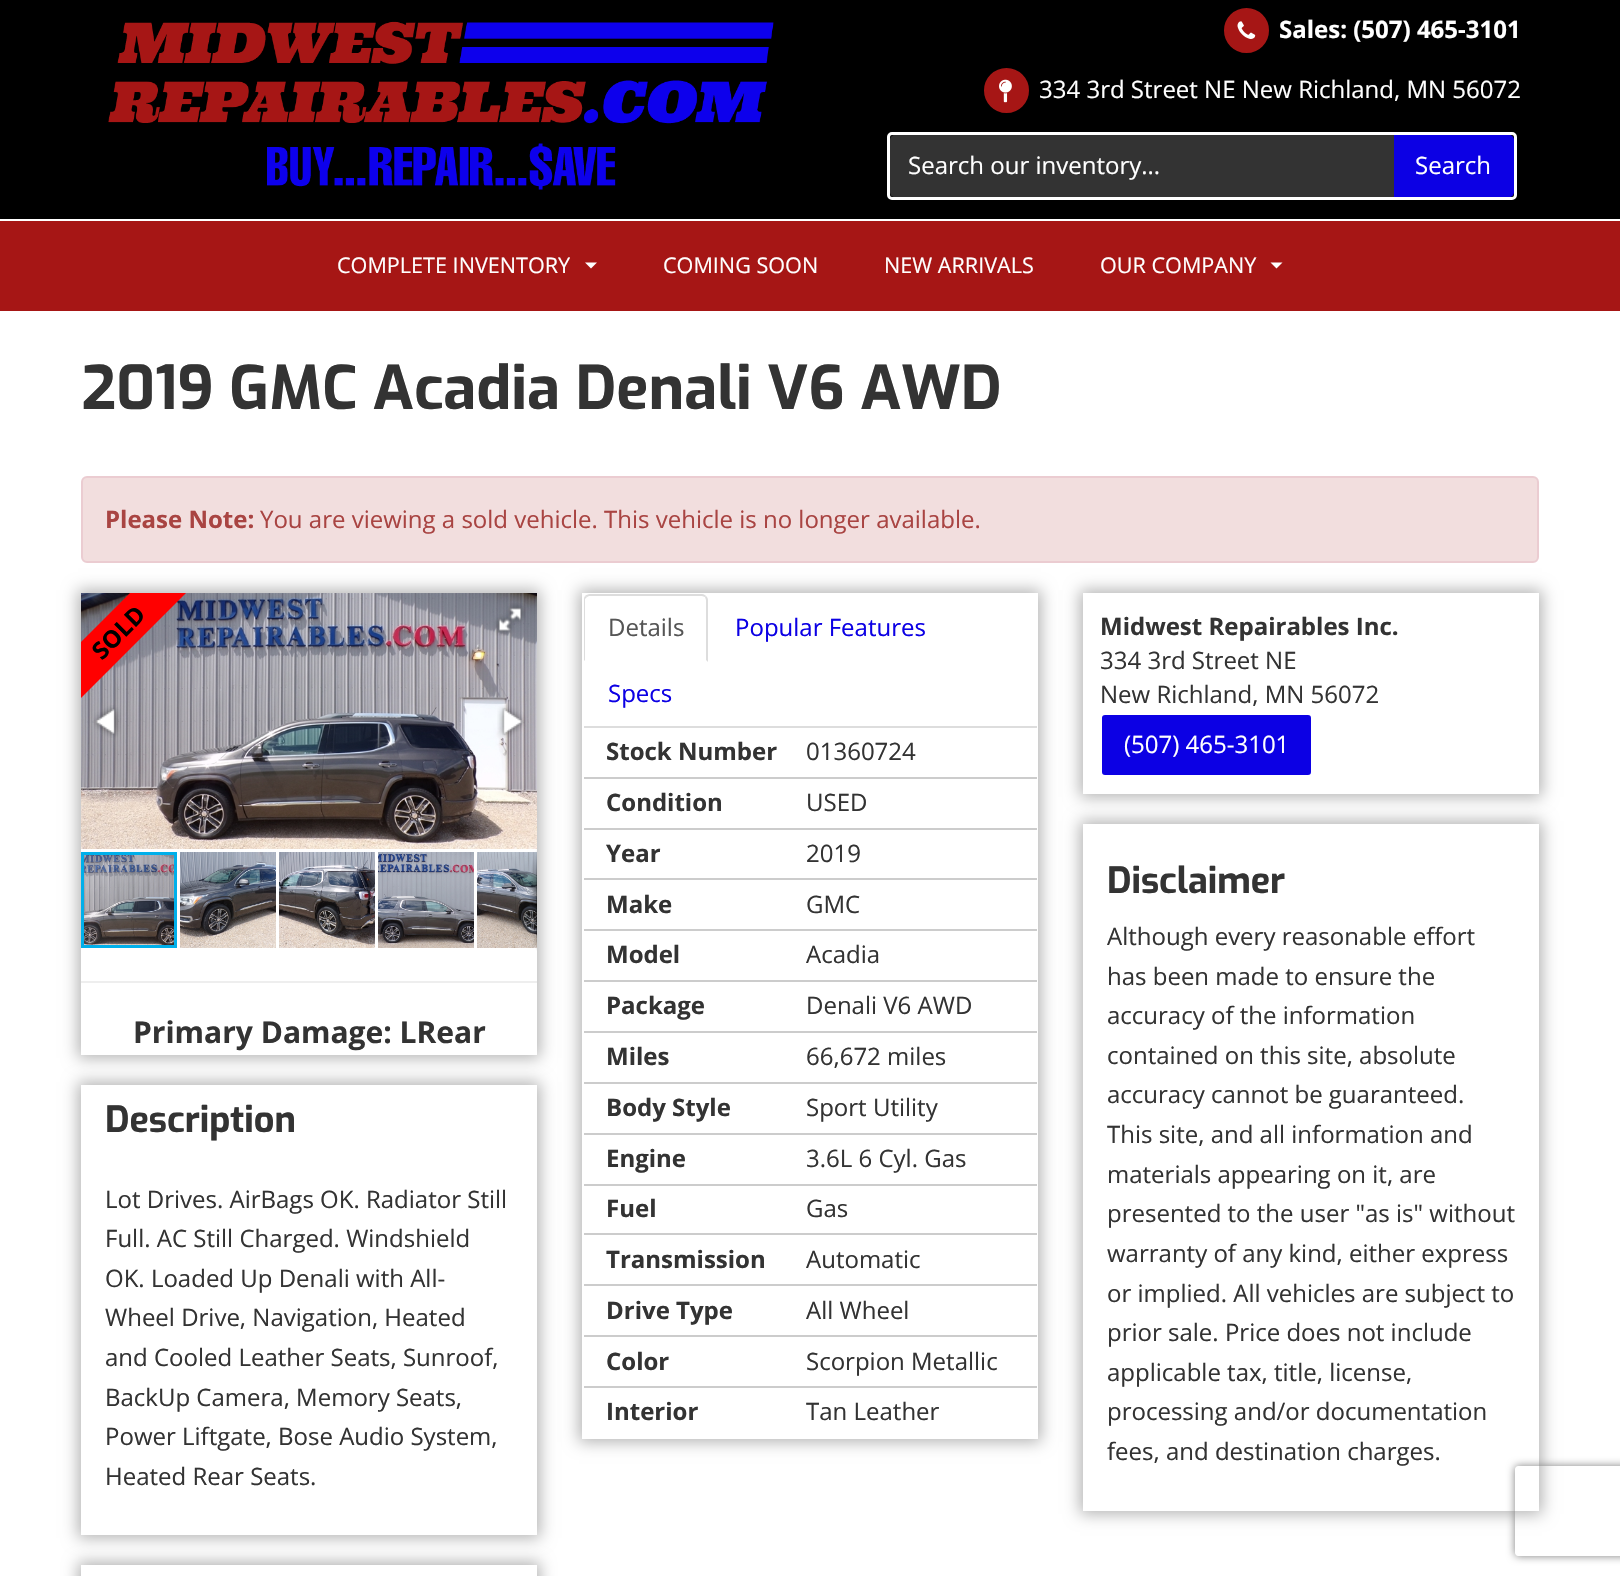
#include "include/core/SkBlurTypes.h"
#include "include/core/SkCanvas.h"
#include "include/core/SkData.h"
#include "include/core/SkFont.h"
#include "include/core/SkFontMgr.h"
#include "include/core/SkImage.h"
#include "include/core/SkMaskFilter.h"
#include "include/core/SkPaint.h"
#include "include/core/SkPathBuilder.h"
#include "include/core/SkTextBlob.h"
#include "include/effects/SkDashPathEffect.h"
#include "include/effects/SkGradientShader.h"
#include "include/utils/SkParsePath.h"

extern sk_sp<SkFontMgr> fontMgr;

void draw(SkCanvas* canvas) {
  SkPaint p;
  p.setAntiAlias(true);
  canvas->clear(SK_ColorWHITE);
  p.setColor(SK_ColorBLACK);
  canvas->drawRect(SkRect::MakeLTRB(0, 0, 1620, 219), p);
  canvas->drawImageRect(SkImages::DeferredFromEncodedData(SkData::MakeFromFileName("images/1.png")), SkRect::MakeLTRB(108, 21, 774, 190), SkSamplingOptions());
  p.setColor(SkColorSetRGB(166, 22, 21));
  canvas->drawCircle(1246.5f, 30.5f, 20, p);
  p.setStyle(SkPaint::kStroke_Style);
  p.setStrokeWidth(5);
  canvas->drawCircle(1246.5f, 30.5f, 20, p);
  canvas->drawImageRect(SkImages::DeferredFromEncodedData(SkData::MakeFromFileName("images/2.png")), SkRect::MakeLTRB(1237, 21, 1256, 39), SkSamplingOptions());
  p.setStyle(SkPaint::kFill_Style);
  canvas->drawCircle(1006.5f, 90.5f, 20, p);
  p.setStyle(SkPaint::kStroke_Style);
  canvas->drawCircle(1006.5f, 90.5f, 20, p);
  canvas->drawImageRect(SkImages::DeferredFromEncodedData(SkData::MakeFromFileName("images/3.png")), SkRect::MakeLTRB(999, 79, 1012, 103), SkSamplingOptions());
  p.setStrokeWidth(3);
  p.setColor(SK_ColorWHITE);
  canvas->drawRoundRect(SkRect::MakeLTRB(888.5f, 133.5f, 1515.5f, 198.5f), 3.5f, 3.5f, p);
  p.setStyle(SkPaint::kFill_Style);
  p.setColor(SkColorSetRGB(12, 0, 228));
  canvas->drawPath(SkPathBuilder().moveTo(1392, 135).lineTo(1509, 135).cubicTo(1512, 135, 1514, 137, 1514, 140).lineTo(1514, 192).cubicTo(1514, 195, 1512, 197, 1509, 197).lineTo(1392, 197).close().detach(), p);
  p.setColor(SkColorSetRGB(51, 51, 51));
  canvas->drawPath(SkPathBuilder().moveTo(895, 135).lineTo(1394, 135).lineTo(1394, 197).lineTo(895, 197).cubicTo(892, 197, 890, 195, 890, 192).lineTo(890, 140).cubicTo(890, 137, 892, 135, 895, 135).close().detach(), p);
  p.setColor(SkColorSetARGB(18, 0, 0, 0));
  canvas->drawPath(SkPathBuilder().moveTo(894, 136).lineTo(1394, 136).lineTo(1394, 135).lineTo(895, 135).cubicTo(892, 135, 890, 137, 890, 140).lineTo(890, 141).cubicTo(890, 139, 892, 136, 894, 136).close().detach(), p);
  p.setColor(SkColorSetRGB(166, 22, 21));
  canvas->drawRect(SkRect::MakeLTRB(0, 221, 1620, 311), p);
  p.setColor(SK_ColorWHITE);
  canvas->drawPath(SkPathBuilder().moveTo(585, 262.5f).lineTo(597, 262.5f).lineTo(591, 268.5f).close().detach(), p);
  canvas->drawPath(SkPathBuilder().moveTo(1270.5f, 262.5f).lineTo(1282.5f, 262.5f).lineTo(1276.5f, 268.5f).close().detach(), p);
  p.setColor(SkColorSetRGB(242, 222, 222));
  canvas->drawRoundRect(SkRect::MakeLTRB(82, 477, 1538, 562), 5, 5, p);
  p.setStyle(SkPaint::kStroke_Style);
  p.setStrokeWidth(2);
  p.setColor(SkColorSetRGB(235, 204, 209));
  canvas->drawRoundRect(SkRect::MakeLTRB(82, 477, 1538, 562), 5, 5, p);
  p.setStyle(SkPaint::kFill_Style);
  p.setColor(SkColorSetARGB(77, 0, 0, 0));
  p.setMaskFilter(SkMaskFilter::MakeBlur(kNormal_SkBlurStyle, 7.5f));
  canvas->drawRect(SkRect::MakeLTRB(78, 590, 540, 1058), p);
  p.setMaskFilter(nullptr);
  p.setColor(SK_ColorWHITE);
  canvas->drawRect(SkRect::MakeLTRB(81, 849, 537, 1055), p);
  canvas->drawImageRect(SkImages::DeferredFromEncodedData(SkData::MakeFromFileName("images/4.png")), SkRect::MakeLTRB(81, 593, 537, 849), SkSamplingOptions());
  canvas->drawImageRect(SkImages::DeferredFromEncodedData(SkData::MakeFromFileName("images/5.png")), SkRect::MakeLTRB(494, 603, 526, 636), SkSamplingOptions());
  canvas->drawImageRect(SkImages::DeferredFromEncodedData(SkData::MakeFromFileName("images/6.png")), SkRect::MakeLTRB(93, 705, 121, 738), SkSamplingOptions());
  canvas->drawImageRect(SkImages::DeferredFromEncodedData(SkData::MakeFromFileName("images/7.png")), SkRect::MakeLTRB(497, 705, 526, 738), SkSamplingOptions());
  canvas->drawImageRect(SkImages::DeferredFromEncodedData(SkData::MakeFromFileName("images/11.png")), SkRect::MakeLTRB(477, 852, 537, 948), SkSamplingOptions());
  {
    const SkColor colors[] = {SkColorSetARGB(102, 0, 0, 0), SkColorSetARGB(0, 0, 0, 0)};
    const float stops[] = {0, 1};
    SkMatrix m = SkMatrix::Translate(537, 900).preScale(7.5f, 51);
    p.setShader(SkGradientShader::MakeRadial({0, 0}, 1, colors, stops, 2, SkTileMode::kClamp, 0, &m));
    p.setAlpha(255);
  }
  canvas->drawRect(SkRect::MakeLTRB(530, 849, 537, 951), p);
  {
    const SkColor colors[] = {SkColorSetARGB(0, 0, 0, 0), SkColorSetARGB(51, 0, 0, 0), SkColorSetARGB(77, 0, 0, 0), SkColorSetARGB(0, 0, 0, 0)};
    const float stops[] = {0, 0.25f, 0.75f, 1};
    const SkPoint ends[] = {{536, 849}, {536, 951}};
    p.setShader(SkGradientShader::MakeLinear(ends, colors, stops, 4, SkTileMode::kClamp));
    p.setAlpha(255);
  }
  canvas->drawRect(SkRect::MakeLTRB(536, 849, 537, 951), p);
  canvas->drawImageRect(SkImages::DeferredFromEncodedData(SkData::MakeFromFileName("images/12.png")), SkRect::MakeLTRB(84, 855, 174, 945), SkSamplingOptions());
  p.setStyle(SkPaint::kStroke_Style);
  p.setStrokeWidth(3);
  p.setShader(nullptr);
  p.setColor(SkColorSetRGB(0, 175, 234));
  canvas->drawRect(SkRect::MakeLTRB(82.5f, 853.5f, 175.5f, 946.5f), p);
  canvas->drawImageRect(SkImages::DeferredFromEncodedData(SkData::MakeFromFileName("images/8.png")), SkRect::MakeLTRB(180, 852, 276, 948), SkSamplingOptions());
  canvas->drawImageRect(SkImages::DeferredFromEncodedData(SkData::MakeFromFileName("images/9.png")), SkRect::MakeLTRB(279, 852, 375, 948), SkSamplingOptions());
  canvas->drawImageRect(SkImages::DeferredFromEncodedData(SkData::MakeFromFileName("images/10.png")), SkRect::MakeLTRB(378, 852, 474, 948), SkSamplingOptions());
  canvas->save();
  canvas->clipRect(SkRect::MakeLTRB(81, 593, 306, 818));
  p.setStyle(SkPaint::kFill_Style);
  p.setColor(SkColorSetRGB(255, 0, 0));
  canvas->drawPath(SkPathBuilder().moveTo(25, 698).lineTo(184, 539).lineTo(212, 567).lineTo(53, 726).close().detach(), p);
  canvas->restore();
  p.setColor(SkColorSetRGB(238, 238, 238));
  canvas->drawRect(SkRect::MakeLTRB(81, 981, 537, 983), p);
  p.setColor(SkColorSetARGB(77, 0, 0, 0));
  p.setMaskFilter(SkMaskFilter::MakeBlur(kNormal_SkBlurStyle, 7.5f));
  canvas->drawRect(SkRect::MakeLTRB(78, 1082, 540, 1538), p);
  p.setMaskFilter(nullptr);
  p.setColor(SK_ColorWHITE);
  canvas->drawRect(SkRect::MakeLTRB(81, 1085, 537, 1535), p);
  canvas->save();
  canvas->clipPath(SkPathBuilder(SkPathFillType::kEvenOdd).moveTo(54, 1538).lineTo(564, 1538).lineTo(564, 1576).lineTo(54, 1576).close().moveTo(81, 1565).lineTo(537, 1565).lineTo(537, 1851).lineTo(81, 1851).close().detach(), true);
  p.setColor(SkColorSetARGB(77, 0, 0, 0));
  p.setMaskFilter(SkMaskFilter::MakeBlur(kNormal_SkBlurStyle, 7.5f));
  canvas->drawRect(SkRect::MakeLTRB(78, 1562, 540, 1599), p);
  p.setMaskFilter(nullptr);
  canvas->restore();
  p.setMaskFilter(SkMaskFilter::MakeBlur(kNormal_SkBlurStyle, 7.5f));
  canvas->drawRect(SkRect::MakeLTRB(579, 590, 1041, 1442), p);
  p.setMaskFilter(nullptr);
  p.setColor(SK_ColorWHITE);
  canvas->drawRect(SkRect::MakeLTRB(582, 593, 1038, 1439), p);
  p.setColor(SkColorSetRGB(221, 221, 221));
  canvas->drawRect(SkRect::MakeLTRB(584, 726, 1037, 728), p);
  canvas->drawPath(SkPathBuilder().moveTo(590, 594).cubicTo(588, 594, 586, 595, 585, 596).lineTo(587, 597).lineTo(589, 596).lineTo(702, 596).lineTo(705, 597).lineTo(706, 596).cubicTo(705, 595, 704, 594, 702, 594).close().detach(), p);
  canvas->drawPath(SkPathBuilder().moveTo(708, 662).lineTo(708, 600).cubicTo(708, 598, 707, 597, 706, 596).lineTo(705, 597).lineTo(706, 600).lineTo(706, 660).close().detach(), p);
  canvas->drawPath(SkPathBuilder().moveTo(585, 596).cubicTo(584, 597, 584, 599, 584, 600).lineTo(584, 661).lineTo(585, 660).lineTo(585, 599).lineTo(587, 597).close().detach(), p);
  p.setColor(SkColorSetRGB(204, 204, 204));
  canvas->drawRect(SkRect::MakeLTRB(584, 777, 1037, 779), p);
  canvas->drawRect(SkRect::MakeLTRB(584, 828, 1037, 830), p);
  canvas->drawRect(SkRect::MakeLTRB(584, 878, 1037, 880), p);
  canvas->drawRect(SkRect::MakeLTRB(584, 929, 1037, 931), p);
  canvas->drawRect(SkRect::MakeLTRB(584, 980, 1037, 982), p);
  canvas->drawRect(SkRect::MakeLTRB(584, 1031, 1037, 1033), p);
  canvas->drawRect(SkRect::MakeLTRB(584, 1082, 1037, 1084), p);
  canvas->drawRect(SkRect::MakeLTRB(584, 1133, 1037, 1135), p);
  canvas->drawRect(SkRect::MakeLTRB(584, 1184, 1037, 1186), p);
  canvas->drawRect(SkRect::MakeLTRB(584, 1233, 1037, 1235), p);
  canvas->drawRect(SkRect::MakeLTRB(584, 1284, 1037, 1286), p);
  canvas->drawRect(SkRect::MakeLTRB(584, 1335, 1037, 1337), p);
  canvas->drawRect(SkRect::MakeLTRB(584, 1386, 1037, 1388), p);
  p.setColor(SkColorSetARGB(77, 0, 0, 0));
  p.setMaskFilter(SkMaskFilter::MakeBlur(kNormal_SkBlurStyle, 7.5f));
  canvas->drawRect(SkRect::MakeLTRB(1080, 590, 1542, 797), p);
  p.setMaskFilter(nullptr);
  p.setColor(SK_ColorWHITE);
  canvas->drawRect(SkRect::MakeLTRB(1083, 593, 1539, 794), p);
  p.setColor(SkColorSetRGB(12, 0, 228));
  canvas->drawRoundRect(SkRect::MakeLTRB(1101, 714, 1312, 776), 4, 4, p);
  p.setStyle(SkPaint::kStroke_Style);
  p.setStrokeWidth(2);
  p.setColor(SK_ColorWHITE);
  canvas->drawRoundRect(SkRect::MakeLTRB(1101, 714, 1312, 776), 4, 4, p);
  p.setStyle(SkPaint::kFill_Style);
  p.setColor(SkColorSetARGB(77, 0, 0, 0));
  p.setMaskFilter(SkMaskFilter::MakeBlur(kNormal_SkBlurStyle, 7.5f));
  canvas->drawRect(SkRect::MakeLTRB(1080, 821, 1542, 1514), p);
  p.setMaskFilter(nullptr);
  p.setColor(SK_ColorWHITE);
  canvas->drawRect(SkRect::MakeLTRB(1083, 824, 1539, 1511), p);
  canvas->save();
  canvas->clipPath(SkPathBuilder(SkPathFillType::kEvenOdd).moveTo(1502, 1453).lineTo(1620, 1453).lineTo(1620, 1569).lineTo(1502, 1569).close().moveTo(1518, 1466).lineTo(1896, 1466).cubicTo(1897.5f, 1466, 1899, 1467.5f, 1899, 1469).lineTo(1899, 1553).cubicTo(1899, 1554.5f, 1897.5f, 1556, 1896, 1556).lineTo(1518, 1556).cubicTo(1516.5f, 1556, 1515, 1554.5f, 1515, 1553).lineTo(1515, 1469).cubicTo(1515, 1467.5f, 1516.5f, 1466, 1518, 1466).close().detach(), true);
  p.setColor(SkColorSetRGB(128, 128, 128));
  p.setMaskFilter(SkMaskFilter::MakeBlur(kNormal_SkBlurStyle, 4));
  canvas->drawRoundRect(SkRect::MakeLTRB(1515, 1466, 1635, 1556), 3, 3, p);
  p.setMaskFilter(nullptr);
  canvas->restore();
  SkFont font1(fontMgr->matchFamilyStyle("Open Sans", SkFontStyle::Bold()), 24);
  font1.setSubpixel(true);
  p.setColor(SK_ColorWHITE);
  canvas->drawString("Sales: (507) 465-3101", 1279, 38, font1, p);
  SkFont font2(fontMgr->matchFamilyStyle("Open Sans", SkFontStyle::Normal()), 24);
  font2.setSubpixel(true);
  canvas->drawString("334 3rd Street NE New Richland, MN 56072", 1039, 98, font2, p);
  canvas->drawString("Search our inventory...", 908, 174, font2, p);
  canvas->drawString("Search", 1415, 174, font2, p);
  SkFont font3(fontMgr->matchFamilyStyle("Open Sans", SkFontStyle::Normal()), 21.6f);
  font3.setSubpixel(true);
  canvas->drawString("COMPLETE INVENTORY", 337, 273, font3, p);
  canvas->drawString("COMING SOON", 663, 273, font3, p);
  canvas->drawString("NEW ARRIVALS", 884, 273, font3, p);
  canvas->drawString("OUR COMPANY", 1100, 273, font3, p);
  SkFont font4(fontMgr->matchFamilyStyle("Exo", SkFontStyle::Bold()), 60);
  font4.setSubpixel(true);
  p.setColor(SkColorSetRGB(51, 51, 51));
  canvas->drawString("2019 GMC Acadia Denali V6 AWD", 81, 409, font4, p);
  p.setColor(SkColorSetRGB(169, 68, 66));
  canvas->drawString("Please Note:", 105, 528, font1, p);
  canvas->drawString("You are viewing a sold vehicle. This vehicle is no longer available.", 260, 528, font2, p);
  p.setColor(SK_ColorBLACK);
  canvas->save();
  canvas->rotate(-45, 102, 661);
  canvas->drawString("SOLD", 102, 661, font1, p);
  canvas->restore();
  SkFont font5(fontMgr->matchFamilyStyle("Open Sans", SkFontStyle::Bold()), 30);
  font5.setSubpixel(true);
  p.setColor(SkColorSetRGB(51, 51, 51));
  canvas->drawString("Primary Damage: LRear", 133, 1043, font5, p);
  SkFont font6(fontMgr->matchFamilyStyle("Exo", SkFontStyle::Bold()), 36);
  font6.setSubpixel(true);
  canvas->drawString("Description", 105, 1132, font6, p);
  canvas->drawString("Lot Drives. AirBags OK. Radiator Still", 105, 1208, font2, p);
  canvas->drawString("Full. AC Still Charged. Windshield", 105, 1247, font2, p);
  canvas->drawString("OK. Loaded Up Denali with All-", 105, 1287, font2, p);
  canvas->drawString("Wheel Drive, Navigation, Heated", 105, 1326, font2, p);
  canvas->drawString("and Cooled Leather Seats, Sunroof,", 105, 1366, font2, p);
  canvas->drawString("BackUp Camera, Memory Seats,", 105, 1406, font2, p);
  canvas->drawString("Power Liftgate, Bose Audio System,", 105, 1445, font2, p);
  canvas->drawString("Heated Rear Seats.", 105, 1485, font2, p);
  p.setColor(SkColorSetRGB(85, 85, 85));
  canvas->drawString("Details", 608, 636, font2, p);
  p.setColor(SkColorSetRGB(12, 0, 228));
  canvas->drawString("Popular Features", 735, 636, font2, p);
  canvas->drawString("Specs", 608, 702, font2, p);
  p.setColor(SkColorSetRGB(51, 51, 51));
  canvas->drawString("Stock Number", 606, 760, font1, p);
  canvas->drawString("01360724", 806, 760, font2, p);
  canvas->drawString("Condition", 606, 811, font1, p);
  canvas->drawString("USED", 806, 811, font2, p);
  canvas->drawString("Year", 606, 862, font1, p);
  canvas->drawString("2019", 806, 862, font2, p);
  canvas->drawString("Make", 606, 913, font1, p);
  canvas->drawString("GMC", 806, 913, font2, p);
  canvas->drawString("Model", 606, 963, font1, p);
  canvas->drawString("Acadia", 806, 963, font2, p);
  canvas->drawString("Package", 606, 1014, font1, p);
  canvas->drawString("Denali V6 AWD", 806, 1014, font2, p);
  canvas->drawString("Miles", 606, 1065, font1, p);
  canvas->drawString("66,672 miles", 806, 1065, font2, p);
  canvas->drawString("Body Style", 606, 1116, font1, p);
  canvas->drawString("Sport Utility", 806, 1116, font2, p);
  canvas->drawString("Engine", 606, 1167, font1, p);
  canvas->drawString("3.6L 6 Cyl. Gas", 806, 1167, font2, p);
  canvas->drawString("Fuel", 606, 1217, font1, p);
  canvas->drawString("Gas", 806, 1217, font2, p);
  canvas->drawString("Transmission", 606, 1268, font1, p);
  canvas->drawString("Automatic", 806, 1268, font2, p);
  canvas->drawString("Drive Type", 606, 1319, font1, p);
  canvas->drawString("All Wheel", 806, 1319, font2, p);
  canvas->drawString("Color", 606, 1370, font1, p);
  canvas->drawString("Scorpion Metallic", 806, 1370, font2, p);
  canvas->drawString("Interior", 606, 1420, font1, p);
  canvas->drawString("Tan Leather", 806, 1420, font2, p);
  canvas->drawString("Midwest Repairables Inc.", 1100, 635, font1, p);
  canvas->drawString("334 3rd Street NE", 1100, 669, font2, p);
  canvas->drawString("New Richland, MN 56072", 1100, 703, font2, p);
  p.setColor(SK_ColorWHITE);
  canvas->drawString("(507) 465-3101", 1124, 753, font2, p);
  p.setColor(SkColorSetRGB(51, 51, 51));
  canvas->drawString("Disclaimer", 1107, 893, font6, p);
  canvas->drawString("Although every reasonable effort", 1107, 945, font2, p);
  canvas->drawString("has been made to ensure the", 1107, 985, font2, p);
  canvas->drawString("accuracy of the information", 1107, 1024, font2, p);
  canvas->drawString("contained on this site, absolute", 1107, 1064, font2, p);
  canvas->drawString("accuracy cannot be guaranteed.", 1107, 1103, font2, p);
  canvas->drawString("This site, and all information and", 1107, 1143, font2, p);
  canvas->drawString("materials appearing on it, are", 1107, 1183, font2, p);
  canvas->drawString("presented to the user \"as is\" without", 1107, 1222, font2, p);
  canvas->drawString("warranty of any kind, either express", 1107, 1262, font2, p);
  canvas->drawString("or implied. All vehicles are subject to", 1107, 1302, font2, p);
  canvas->drawString("prior sale. Price does not include", 1107, 1341, font2, p);
  canvas->drawString("applicable tax, title, license,", 1107, 1381, font2, p);
  canvas->drawString("processing and/or documentation", 1107, 1420, font2, p);
  canvas->drawString("fees, and destination charges.", 1107, 1460, font2, p);
}
